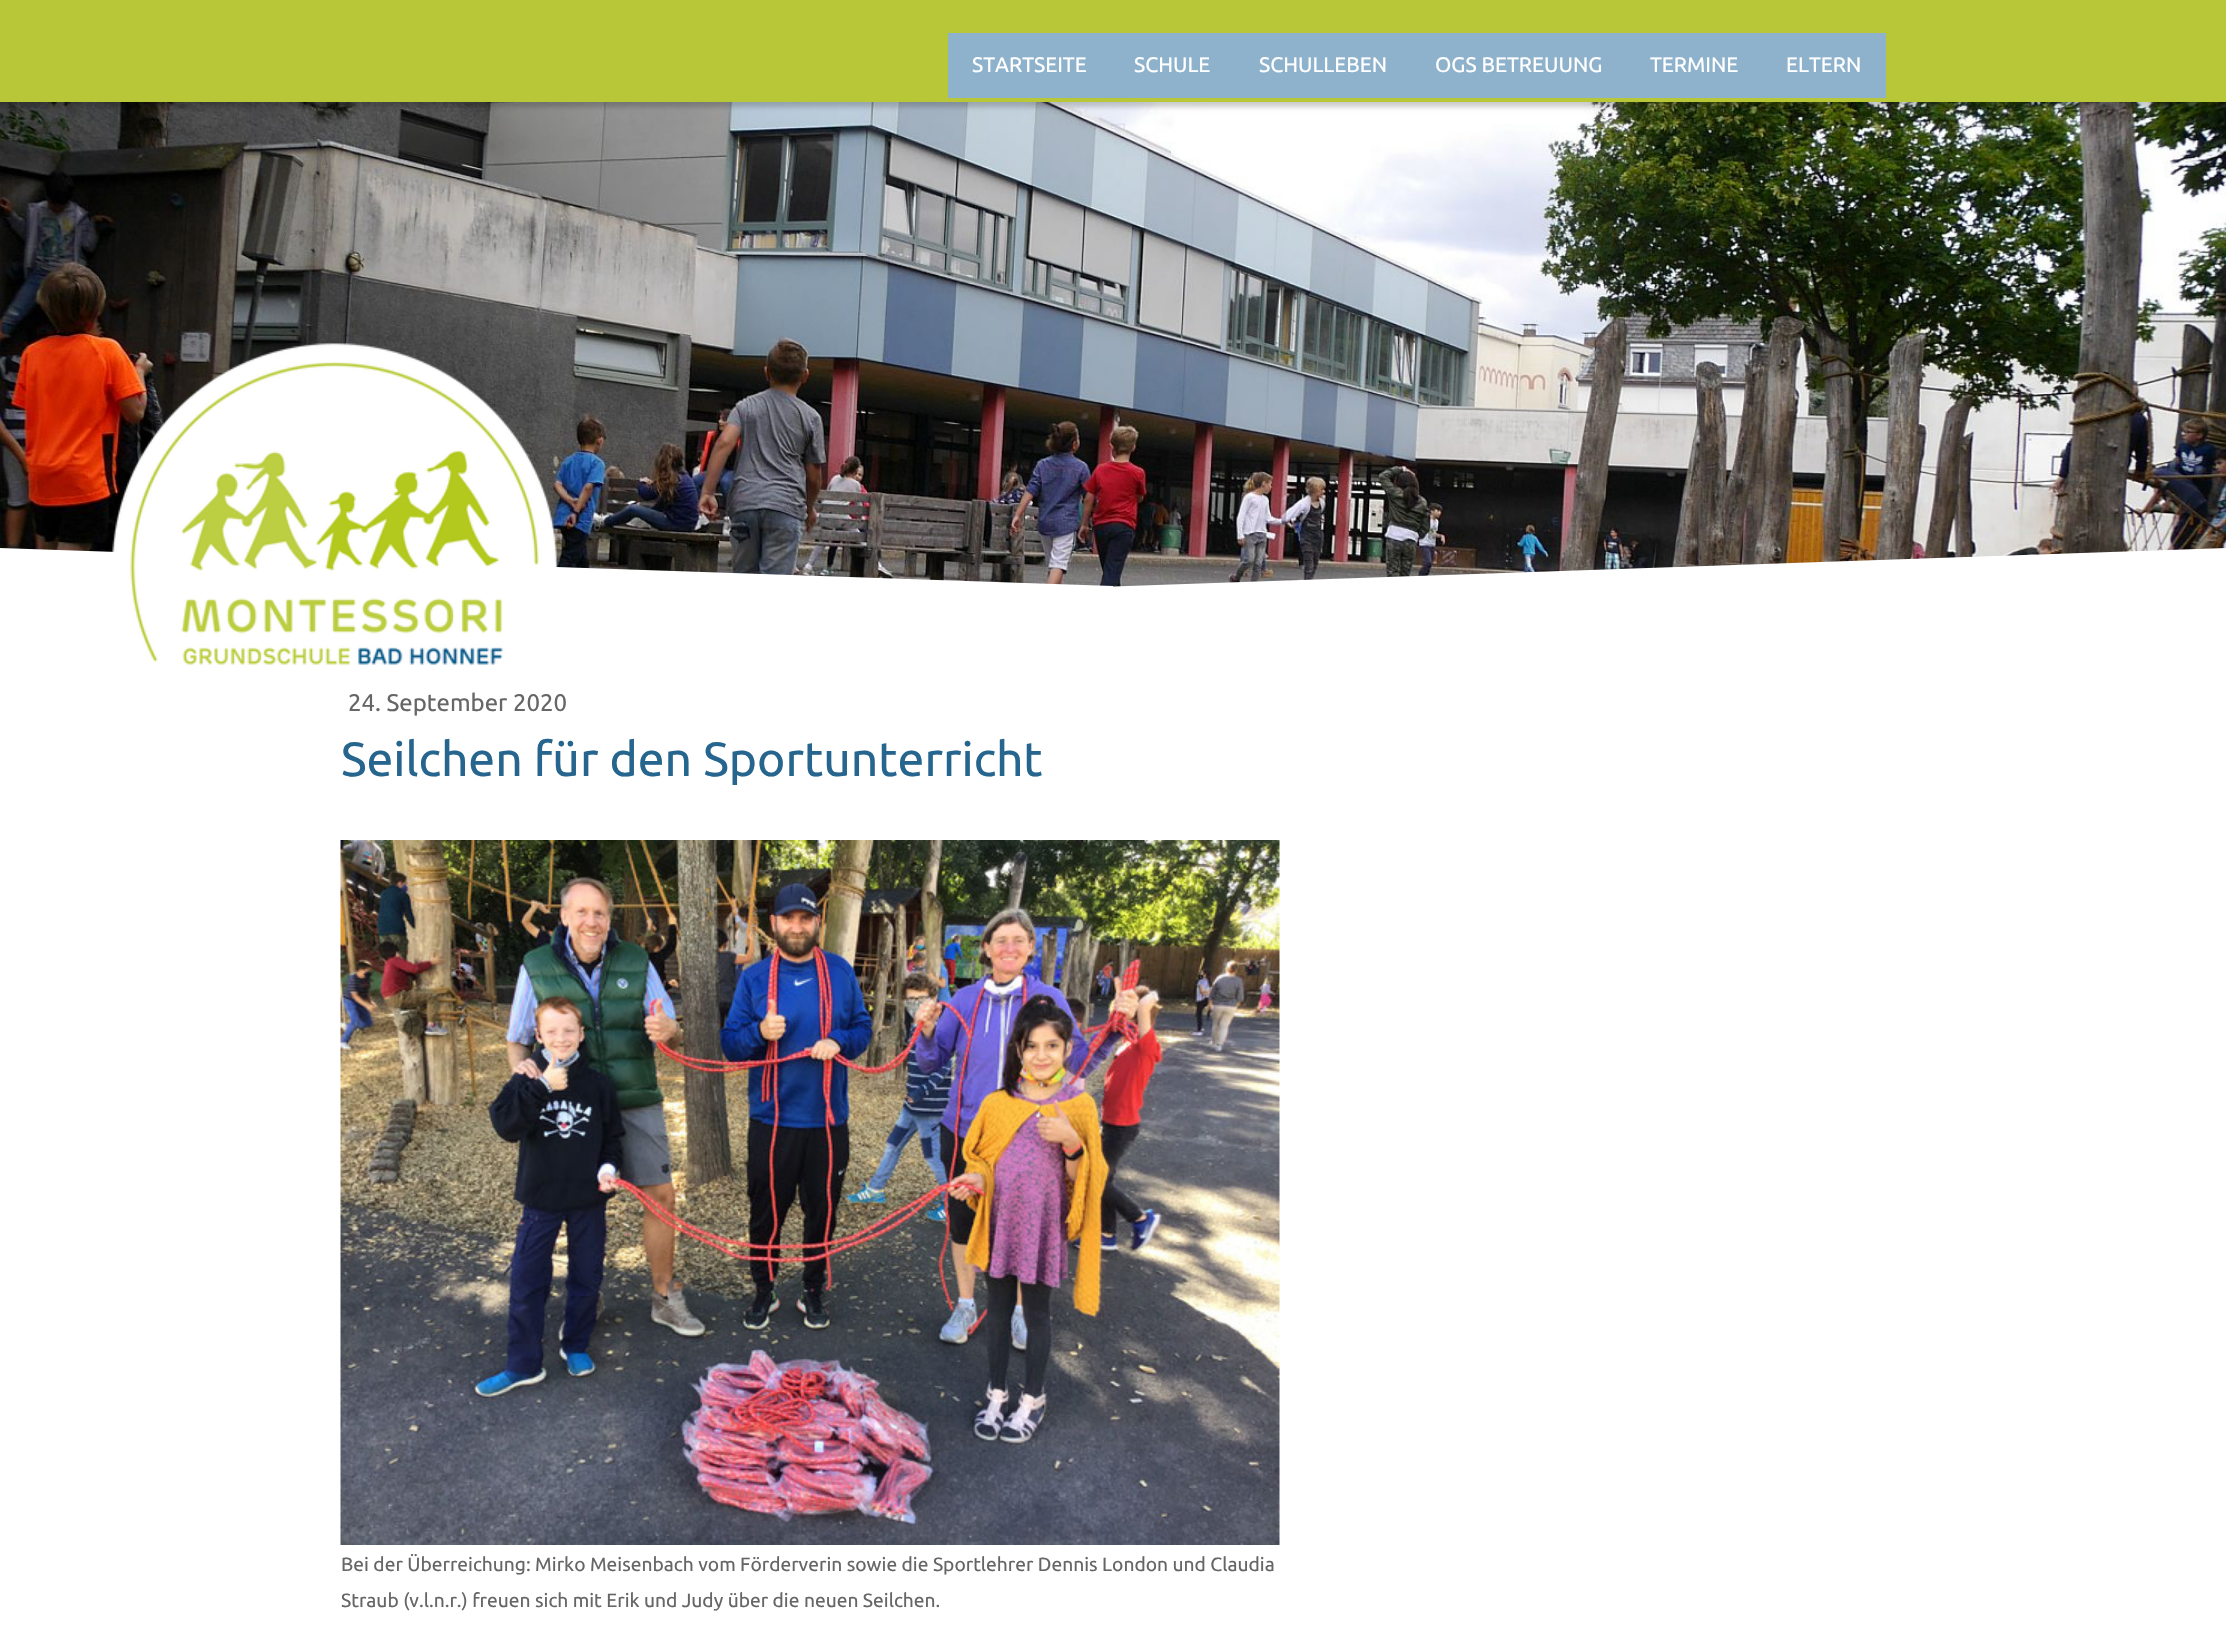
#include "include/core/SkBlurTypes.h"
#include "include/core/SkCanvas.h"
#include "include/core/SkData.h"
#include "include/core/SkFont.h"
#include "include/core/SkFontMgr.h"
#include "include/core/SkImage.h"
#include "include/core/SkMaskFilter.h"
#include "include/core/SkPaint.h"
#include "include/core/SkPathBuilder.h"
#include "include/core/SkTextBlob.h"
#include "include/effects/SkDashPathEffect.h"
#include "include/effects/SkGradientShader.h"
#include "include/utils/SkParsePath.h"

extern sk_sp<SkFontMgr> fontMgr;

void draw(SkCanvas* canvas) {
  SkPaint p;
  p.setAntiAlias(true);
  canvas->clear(SK_ColorWHITE);
  canvas->drawImageRect(SkImages::DeferredFromEncodedData(SkData::MakeFromFileName("images/1.png")), SkRect::MakeLTRB(0, 102, 2226, 587), SkSamplingOptions());
  p.setColor(SkColorSetARGB(51, 0, 0, 0));
  p.setMaskFilter(SkMaskFilter::MakeBlur(kNormal_SkBlurStyle, 2.5f));
  canvas->drawRect(SkRect::MakeLTRB(-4, -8, 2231, 107), p);
  p.setMaskFilter(nullptr);
  p.setColor(SkColorSetRGB(184, 199, 56));
  canvas->drawRect(SkRect::MakeLTRB(0, 0, 2226, 102), p);
  p.setColor(SkColorSetRGB(142, 178, 204));
  canvas->drawRect(SkRect::MakeLTRB(948, 33, 1886, 98), p);
  canvas->save();
  canvas->clipRect(SkRect::MakeLTRB(0, 512, 2226, 662));
  p.setColor(SK_ColorWHITE);
  canvas->drawPath(SkPathBuilder().moveTo(0, 625).lineTo(2226, 548).lineTo(2226, 698).lineTo(0, 775).close().detach(), p);
  canvas->drawPath(SkPathBuilder().moveTo(0, 548).lineTo(1113, 586).lineTo(1113, 796).lineTo(0, 758).close().detach(), p);
  canvas->restore();
  canvas->drawImageRect(SkImages::DeferredFromEncodedData(SkData::MakeFromFileName("images/2.png")), SkRect::MakeLTRB(112, 343, 557, 665), SkSamplingOptions());
  canvas->drawImageRect(SkImages::DeferredFromEncodedData(SkData::MakeFromFileName("images/3.png")), SkRect::MakeLTRB(340, 840, 1280, 1545), SkSamplingOptions());
  SkFont font1(fontMgr->matchFamilyStyle("Ubuntu", SkFontStyle::Normal()), 21);
  font1.setSubpixel(true);
  canvas->drawString("STARTSEITE", 972, 72, font1, p);
  canvas->drawString("SCHULE", 1134, 72, font1, p);
  canvas->drawString("SCHULLEBEN", 1259, 72, font1, p);
  canvas->drawString("OGS BETREUUNG", 1435, 72, font1, p);
  canvas->drawString("TERMINE", 1650, 72, font1, p);
  canvas->drawString("ELTERN", 1786, 72, font1, p);
  SkFont font2(fontMgr->matchFamilyStyle("Ubuntu", SkFontStyle::Normal()), 24);
  font2.setSubpixel(true);
  p.setColor(SkColorSetRGB(102, 102, 102));
  canvas->drawString("24. September 2020", 348, 711, font2, p);
  SkFont font3(fontMgr->matchFamilyStyle("Ubuntu", SkFontStyle::Normal()), 48);
  font3.setSubpixel(true);
  p.setColor(SkColorSetRGB(38, 101, 141));
  canvas->drawString("Seilchen für den Sportunterricht", 341, 776, font3, p);
  SkFont font4(fontMgr->matchFamilyStyle("Ubuntu", SkFontStyle::Normal()), 19.2f);
  font4.setSubpixel(true);
  p.setColor(SkColorSetRGB(102, 102, 102));
  canvas->drawString("Bei der Überreichung: Mirko Meisenbach vom Förderverin sowie die Sportlehrer Dennis London und Claudia", 341, 1571, font4, p);
  canvas->drawString("Straub (v.l.n.r.) freuen sich mit Erik und Judy über die neuen Seilchen.", 341, 1607, font4, p);
}
